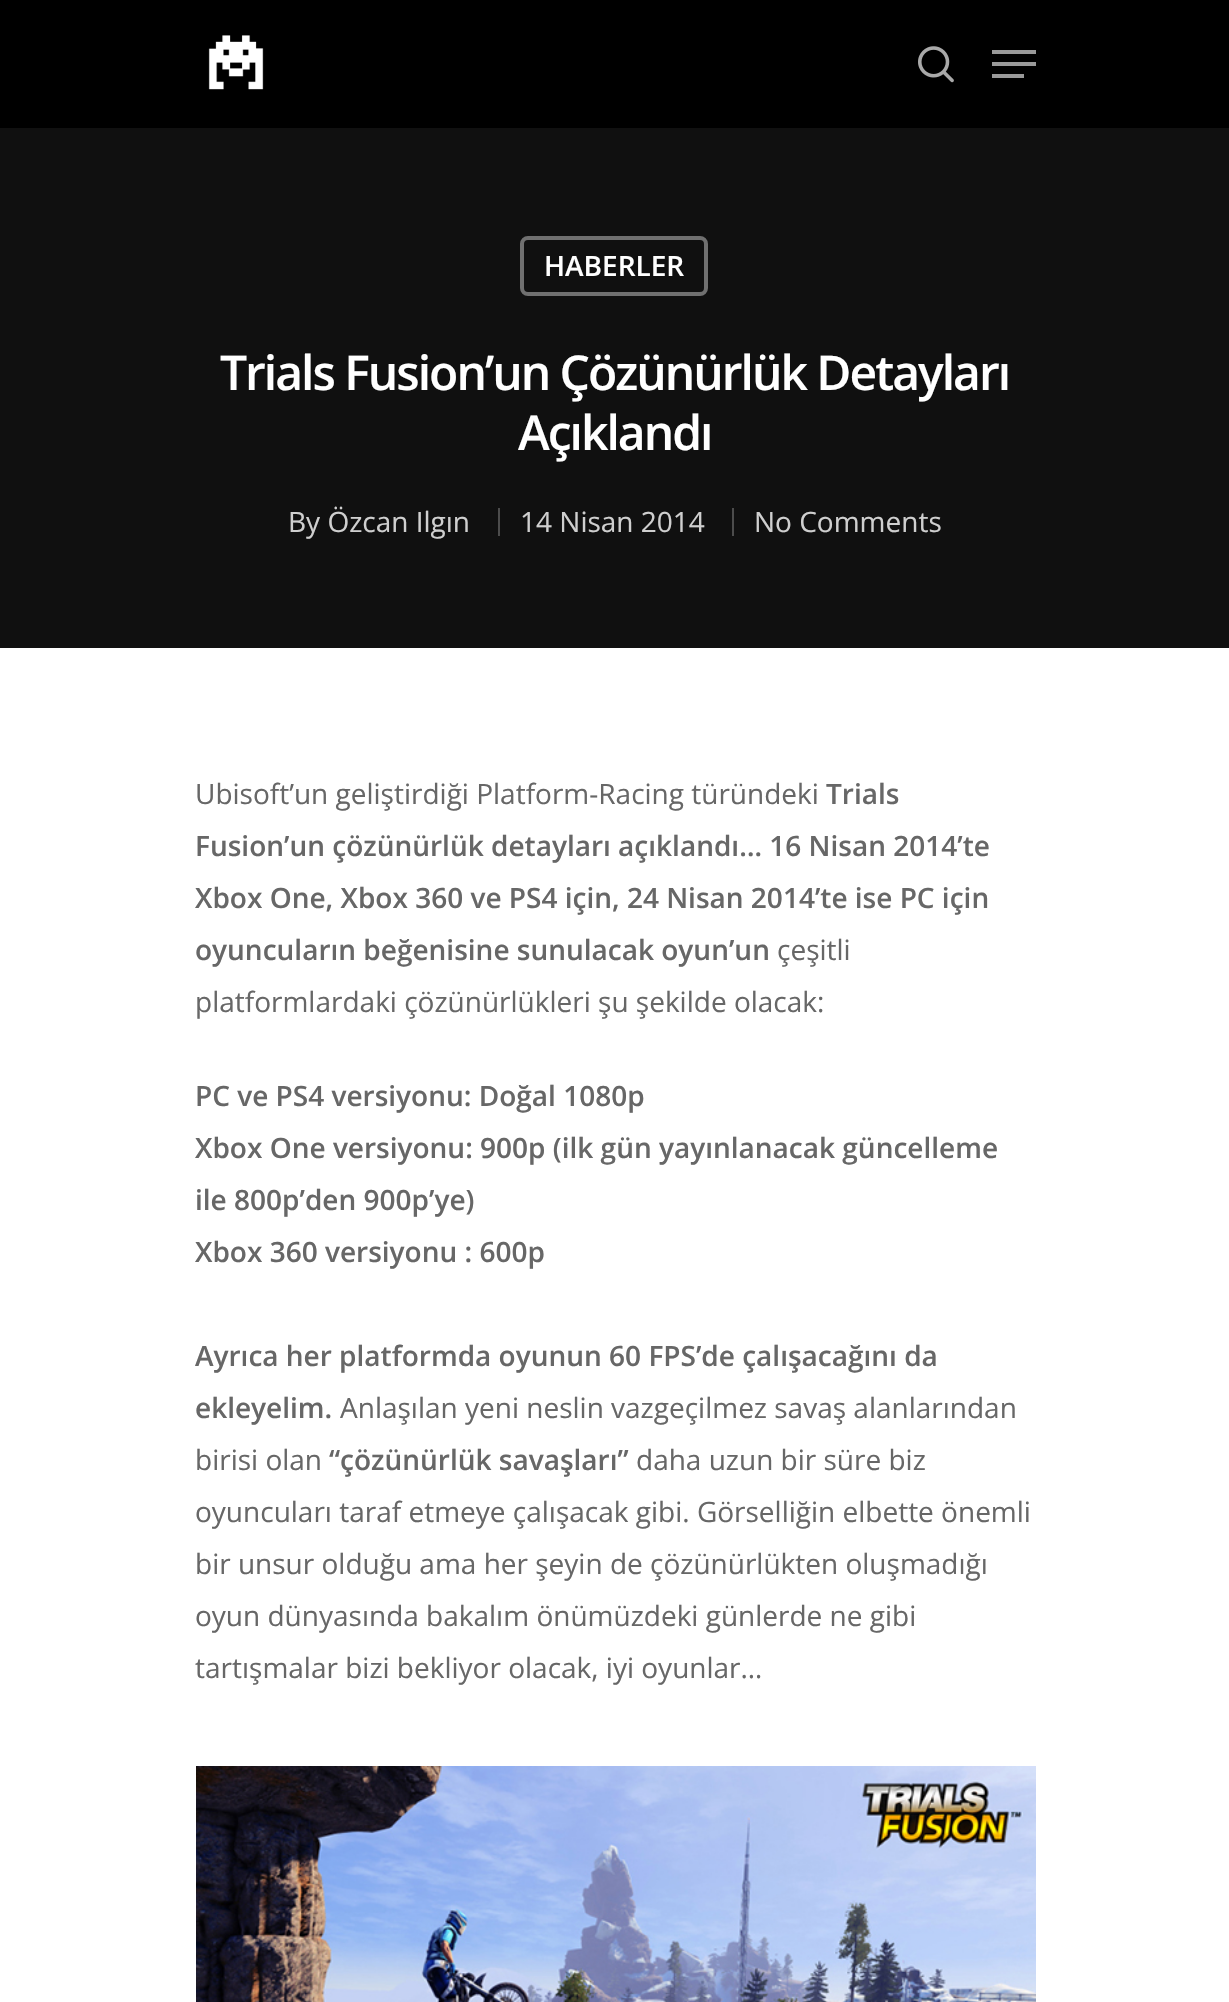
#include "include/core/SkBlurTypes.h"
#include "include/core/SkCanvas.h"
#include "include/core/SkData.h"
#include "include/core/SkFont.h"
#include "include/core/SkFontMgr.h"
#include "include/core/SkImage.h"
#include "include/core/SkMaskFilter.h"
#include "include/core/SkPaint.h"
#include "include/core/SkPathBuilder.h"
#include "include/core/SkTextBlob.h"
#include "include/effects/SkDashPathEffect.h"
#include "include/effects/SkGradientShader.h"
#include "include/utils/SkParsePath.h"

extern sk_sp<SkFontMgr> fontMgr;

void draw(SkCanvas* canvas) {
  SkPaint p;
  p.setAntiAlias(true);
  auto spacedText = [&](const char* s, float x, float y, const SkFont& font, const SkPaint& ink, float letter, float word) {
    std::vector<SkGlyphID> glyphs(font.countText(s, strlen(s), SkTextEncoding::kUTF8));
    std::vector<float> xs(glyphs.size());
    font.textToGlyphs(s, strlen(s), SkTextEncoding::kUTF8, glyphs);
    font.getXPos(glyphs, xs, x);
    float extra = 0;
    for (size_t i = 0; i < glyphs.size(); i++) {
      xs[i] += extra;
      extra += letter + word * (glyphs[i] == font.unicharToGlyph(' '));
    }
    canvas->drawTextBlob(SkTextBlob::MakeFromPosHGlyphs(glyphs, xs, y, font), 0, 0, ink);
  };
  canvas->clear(SK_ColorWHITE);
  p.setColor(SK_ColorBLACK);
  canvas->drawRect(SkRect::MakeLTRB(0, 0, 1229, 128), p);
  canvas->drawImageRect(SkImages::DeferredFromEncodedData(SkData::MakeFromFileName("images/1.png")), SkRect::MakeLTRB(208, 35, 264, 90), SkSamplingOptions());
  canvas->drawImageRect(SkImages::DeferredFromEncodedData(SkData::MakeFromFileName("images/2.png")), SkRect::MakeLTRB(918, 46, 954, 83), SkSamplingOptions());
  p.setColor(SkColorSetRGB(153, 153, 153));
  canvas->drawRect(SkRect::MakeLTRB(992, 50, 1036, 54), p);
  canvas->drawRect(SkRect::MakeLTRB(992, 74, 1024, 78), p);
  canvas->drawRect(SkRect::MakeLTRB(992, 62, 1036, 66), p);
  p.setColor(SkColorSetRGB(16, 16, 16));
  canvas->drawRect(SkRect::MakeLTRB(0, 128, 1229, 648), p);
  p.setStyle(SkPaint::kStroke_Style);
  p.setStrokeWidth(4);
  p.setColor(SkColorSetRGB(112, 112, 112));
  canvas->drawRoundRect(SkRect::MakeLTRB(522, 238, 706, 294), 6, 6, p);
  p.setStyle(SkPaint::kFill_Style);
  p.setColor(SkColorSetRGB(76, 76, 76));
  canvas->drawRect(SkRect::MakeLTRB(498, 508, 500, 536), p);
  canvas->drawRect(SkRect::MakeLTRB(732, 508, 734, 536), p);
  canvas->drawImageRect(SkImages::DeferredFromEncodedData(SkData::MakeFromFileName("images/3.png")), SkRect::MakeLTRB(196, 1766, 1036, 2002), SkSamplingOptions());
  SkFont font1(fontMgr->matchFamilyStyle("Open Sans", SkFontStyle(600, SkFontStyle::kNormal_Width, SkFontStyle::kUpright_Slant)), 28);
  font1.setSubpixel(true);
  p.setColor(SK_ColorWHITE);
  canvas->drawString("HABERLER", 544, 276, font1, p);
  SkFont font2(fontMgr->matchFamilyStyle("Open Sans", SkFontStyle(600, SkFontStyle::kNormal_Width, SkFontStyle::kUpright_Slant)), 48);
  font2.setSubpixel(true);
  spacedText("Trials Fusion’un Çözünürlük Detayları", 220, 390, font2, p, -2, 0);
  spacedText("Açıklandı", 518, 450, font2, p, -2, 0);
  SkFont font3(fontMgr->matchFamilyStyle("Open Sans", SkFontStyle::Normal()), 28);
  font3.setSubpixel(true);
  p.setColor(SkColorSetRGB(207, 207, 207));
  canvas->drawString("By Özcan Ilgın", 288, 532, font3, p);
  canvas->drawString("14 Nisan 2014", 520, 532, font3, p);
  canvas->drawString("No Comments", 754, 532, font3, p);
  p.setColor(SkColorSetRGB(103, 103, 103));
  canvas->drawString("Ubisoft’un geliştirdiği Platform-Racing türündeki", 195, 804, font3, p);
  canvas->drawString("Trials", 826, 804, font1, p);
  canvas->drawString("Fusion’un çözünürlük detayları açıklandı… 16 Nisan 2014’te", 195, 856, font1, p);
  canvas->drawString("Xbox One, Xbox 360 ve PS4 için, 24 Nisan 2014’te ise PC için", 195, 908, font1, p);
  canvas->drawString("oyuncuların beğenisine sunulacak oyun’un", 195, 960, font1, p);
  canvas->drawString("çeşitli", 777, 960, font3, p);
  canvas->drawString("platformlardaki çözünürlükleri şu şekilde olacak:", 195, 1012, font3, p);
  canvas->drawString("PC ve PS4 versiyonu: Doğal 1080p", 195, 1106, font1, p);
  canvas->drawString("Xbox One versiyonu: 900p (ilk gün yayınlanacak güncelleme", 195, 1158, font1, p);
  canvas->drawString("ile 800p’den 900p’ye)", 195, 1210, font1, p);
  canvas->drawString("Xbox 360 versiyonu : 600p", 195, 1262, font1, p);
  canvas->drawString("Ayrıca her platformda oyunun 60 FPS’de çalışacağını da", 195, 1366, font1, p);
  canvas->drawString("ekleyelim.", 195, 1418, font1, p);
  canvas->drawString("Anlaşılan yeni neslin vazgeçilmez savaş alanlarından", 340, 1418, font3, p);
  canvas->drawString("birisi olan", 195, 1470, font3, p);
  canvas->drawString("“çözünürlük savaşları”", 329, 1470, font1, p);
  canvas->drawString("daha uzun bir süre biz", 636, 1470, font3, p);
  canvas->drawString("oyuncuları taraf etmeye çalışacak gibi. Görselliğin elbette önemli", 195, 1522, font3, p);
  canvas->drawString("bir unsur olduğu ama her şeyin de çözünürlükten oluşmadığı", 195, 1574, font3, p);
  canvas->drawString("oyun dünyasında bakalım önümüzdeki günlerde ne gibi", 195, 1626, font3, p);
  canvas->drawString("tartışmalar bizi bekliyor olacak, iyi oyunlar…", 195, 1678, font3, p);
}
